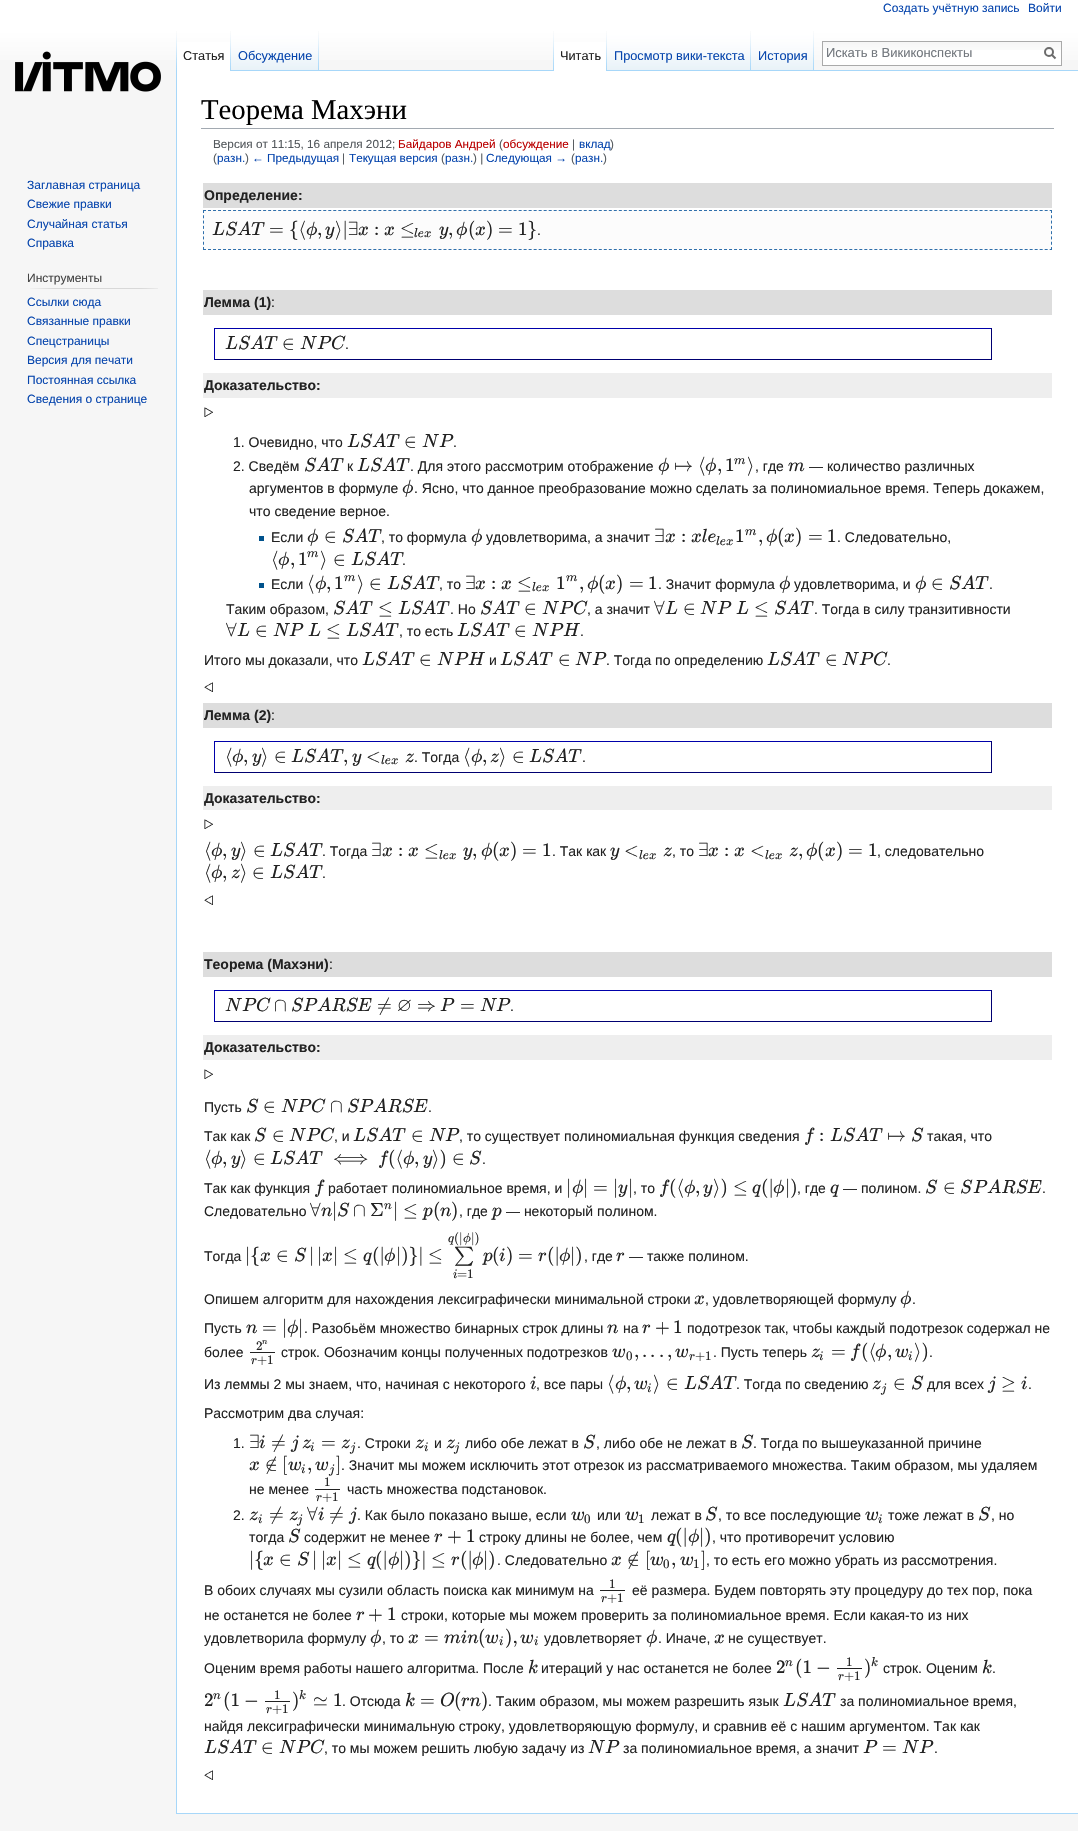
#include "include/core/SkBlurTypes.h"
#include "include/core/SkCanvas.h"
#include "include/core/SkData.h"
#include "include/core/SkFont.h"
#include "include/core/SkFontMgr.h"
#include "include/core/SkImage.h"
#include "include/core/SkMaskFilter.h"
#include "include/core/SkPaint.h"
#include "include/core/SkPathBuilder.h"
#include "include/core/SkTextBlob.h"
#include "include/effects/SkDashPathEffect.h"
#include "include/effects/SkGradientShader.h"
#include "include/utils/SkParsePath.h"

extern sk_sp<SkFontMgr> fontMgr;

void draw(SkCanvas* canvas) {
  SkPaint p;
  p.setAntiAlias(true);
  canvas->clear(SkColorSetRGB(246, 246, 246));
  {
    const SkColor colors[] = {SK_ColorWHITE, SkColorSetRGB(246, 246, 246)};
    const float stops[] = {0.5f, 1};
    const SkPoint ends[] = {{539, -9}, {539, 71}};
    p.setShader(SkGradientShader::MakeLinear(ends, colors, stops, 2, SkTileMode::kClamp));
    p.setAlpha(255);
  }
  canvas->drawRect(SkRect::MakeLTRB(0, 0, 1078, 60), p);
  canvas->drawImageRect(SkImages::DeferredFromEncodedData(SkData::MakeFromFileName("images/1.png")), SkRect::MakeLTRB(176, 31, 177, 70), SkSamplingOptions());
  p.setShader(nullptr);
  p.setColor(SK_ColorWHITE);
  canvas->drawRect(SkRect::MakeLTRB(177, 42, 230, 71), p);
  canvas->drawImageRect(SkImages::DeferredFromEncodedData(SkData::MakeFromFileName("images/2.png")), SkRect::MakeLTRB(230, 31, 231, 71), SkSamplingOptions());
  canvas->drawImageRect(SkImages::DeferredFromEncodedData(SkData::MakeFromFileName("images/3.png")), SkRect::MakeLTRB(231, 31, 319, 71), SkSamplingOptions());
  canvas->drawImageRect(SkImages::DeferredFromEncodedData(SkData::MakeFromFileName("images/1.png")), SkRect::MakeLTRB(318, 31, 319, 70), SkSamplingOptions());
  canvas->drawImageRect(SkImages::DeferredFromEncodedData(SkData::MakeFromFileName("images/1.png")), SkRect::MakeLTRB(553, 31, 554, 70), SkSamplingOptions());
  p.setColor(SkColorSetRGB(167, 215, 249));
  canvas->drawRect(SkRect::MakeLTRB(319, 70, 1078, 71), p);
  p.setColor(SK_ColorWHITE);
  canvas->drawRect(SkRect::MakeLTRB(554, 42, 606, 71), p);
  canvas->drawImageRect(SkImages::DeferredFromEncodedData(SkData::MakeFromFileName("images/2.png")), SkRect::MakeLTRB(606, 31, 607, 71), SkSamplingOptions());
  canvas->drawImageRect(SkImages::DeferredFromEncodedData(SkData::MakeFromFileName("images/4.png")), SkRect::MakeLTRB(607, 31, 751, 71), SkSamplingOptions());
  canvas->drawImageRect(SkImages::DeferredFromEncodedData(SkData::MakeFromFileName("images/1.png")), SkRect::MakeLTRB(750, 31, 751, 70), SkSamplingOptions());
  canvas->drawImageRect(SkImages::DeferredFromEncodedData(SkData::MakeFromFileName("images/5.png")), SkRect::MakeLTRB(751, 31, 814, 71), SkSamplingOptions());
  canvas->drawImageRect(SkImages::DeferredFromEncodedData(SkData::MakeFromFileName("images/1.png")), SkRect::MakeLTRB(813, 31, 814, 70), SkSamplingOptions());
  canvas->drawRect(SkRect::MakeLTRB(823, 50, 1061, 65), p);
  canvas->drawImageRect(SkImages::DeferredFromEncodedData(SkData::MakeFromFileName("images/6.png")), SkRect::MakeLTRB(823, 42, 1061, 50), SkSamplingOptions());
  p.setStyle(SkPaint::kStroke_Style);
  p.setStrokeWidth(1);
  p.setColor(SkColorSetRGB(170, 170, 170));
  canvas->drawRect(SkRect::MakeLTRB(822.5f, 41.5f, 1061.5f, 65.5f), p);
  p.setStrokeWidth(2);
  p.setColor(SkColorSetRGB(108, 108, 108));
  canvas->drawPath(SkPathBuilder().moveTo(1055.5f, 58.5f).lineTo(1051.5f, 54.5f).detach(), p);
  canvas->drawCircle(1049, 52, 4, p);
  canvas->drawImageRect(SkImages::DeferredFromEncodedData(SkData::MakeFromFileName("images/7.png")), SkRect::MakeLTRB(15, 51, 161, 92), SkSamplingOptions());
  canvas->drawImageRect(SkImages::DeferredFromEncodedData(SkData::MakeFromFileName("images/8.png")), SkRect::MakeLTRB(30, 288, 158, 289), SkSamplingOptions());
  p.setStyle(SkPaint::kFill_Style);
  p.setColor(SK_ColorWHITE);
  canvas->drawRect(SkRect::MakeLTRB(177, 71, 1078, 1813), p);
  p.setColor(SkColorSetRGB(167, 215, 249));
  canvas->drawRect(SkRect::MakeLTRB(176, 1813, 1078, 1814), p);
  canvas->drawRect(SkRect::MakeLTRB(176, 70, 177, 1814), p);
  p.setColor(SkColorSetRGB(162, 169, 177));
  canvas->drawRect(SkRect::MakeLTRB(201, 128, 1054, 129), p);
  p.setColor(SkColorSetRGB(221, 221, 221));
  canvas->drawRect(SkRect::MakeLTRB(203, 183, 1052, 208), p);
  p.setColor(SkColorSetRGB(252, 252, 252));
  canvas->drawRect(SkRect::MakeLTRB(203, 210, 1052, 250), p);
  p.setStyle(SkPaint::kStroke_Style);
  p.setStrokeWidth(1);
  p.setColor(SkColorSetRGB(47, 111, 171));
  p.setPathEffect(SkDashPathEffect::Make({{3, 2.01f}}, 0));
  canvas->drawPath(SkPathBuilder().moveTo(203, 210.5f).lineTo(1052, 210.5f).detach(), p);
  p.setPathEffect(nullptr);
  p.setPathEffect(SkDashPathEffect::Make({{3, 2.29f}}, 0));
  canvas->drawPath(SkPathBuilder().moveTo(1051.5f, 210).lineTo(1051.5f, 250).detach(), p);
  p.setPathEffect(nullptr);
  p.setPathEffect(SkDashPathEffect::Make({{3, 2.01f}}, 0));
  canvas->drawPath(SkPathBuilder().moveTo(203, 249.5f).lineTo(1052, 249.5f).detach(), p);
  p.setPathEffect(nullptr);
  p.setPathEffect(SkDashPathEffect::Make({{3, 2.29f}}, 0));
  canvas->drawPath(SkPathBuilder().moveTo(203.5f, 210).lineTo(203.5f, 250).detach(), p);
  p.setPathEffect(nullptr);
  p.setStyle(SkPaint::kFill_Style);
  p.setColor(SkColorSetRGB(221, 221, 221));
  canvas->drawRect(SkRect::MakeLTRB(203, 290, 1052, 315), p);
  p.setColor(SkColorSetRGB(0, 0, 170));
  canvas->drawRect(SkRect::MakeLTRB(214, 328, 992, 329), p);
  p.setColor(SkColorSetRGB(0, 0, 113));
  canvas->drawRect(SkRect::MakeLTRB(991, 328, 992, 360), p);
  canvas->drawRect(SkRect::MakeLTRB(214, 359, 992, 360), p);
  p.setColor(SkColorSetRGB(0, 0, 170));
  canvas->drawRect(SkRect::MakeLTRB(214, 328, 215, 360), p);
  p.setColor(SkColorSetRGB(238, 238, 238));
  canvas->drawRect(SkRect::MakeLTRB(203, 373, 1052, 398), p);
  p.setColor(SkColorSetRGB(0, 82, 140));
  canvas->drawRect(SkRect::MakeLTRB(259, 536, 264, 541), p);
  canvas->drawRect(SkRect::MakeLTRB(259, 583, 264, 588), p);
  p.setColor(SkColorSetRGB(221, 221, 221));
  canvas->drawRect(SkRect::MakeLTRB(203, 703, 1052, 728), p);
  p.setColor(SkColorSetRGB(0, 0, 170));
  canvas->drawRect(SkRect::MakeLTRB(214, 741, 992, 742), p);
  p.setColor(SkColorSetRGB(0, 0, 113));
  canvas->drawRect(SkRect::MakeLTRB(991, 741, 992, 773), p);
  canvas->drawRect(SkRect::MakeLTRB(214, 772, 992, 773), p);
  p.setColor(SkColorSetRGB(0, 0, 170));
  canvas->drawRect(SkRect::MakeLTRB(214, 741, 215, 773), p);
  p.setColor(SkColorSetRGB(238, 238, 238));
  canvas->drawRect(SkRect::MakeLTRB(203, 786, 1052, 810), p);
  p.setColor(SkColorSetRGB(221, 221, 221));
  canvas->drawRect(SkRect::MakeLTRB(203, 952, 1052, 977), p);
  p.setColor(SkColorSetRGB(0, 0, 170));
  canvas->drawRect(SkRect::MakeLTRB(214, 990, 992, 991), p);
  p.setColor(SkColorSetRGB(0, 0, 113));
  canvas->drawRect(SkRect::MakeLTRB(991, 990, 992, 1022), p);
  canvas->drawRect(SkRect::MakeLTRB(214, 1021, 992, 1022), p);
  p.setColor(SkColorSetRGB(0, 0, 170));
  canvas->drawRect(SkRect::MakeLTRB(214, 990, 215, 1022), p);
  p.setColor(SkColorSetRGB(238, 238, 238));
  canvas->drawRect(SkRect::MakeLTRB(203, 1035, 1052, 1060), p);
  p.setColor(SkColorSetRGB(34, 34, 34));
  canvas->drawRect(SkRect::MakeLTRB(250, 1352, 275, 1353), p);
  canvas->drawRect(SkRect::MakeLTRB(315, 1489, 340, 1490), p);
  canvas->drawRect(SkRect::MakeLTRB(600, 1590, 625, 1591), p);
  canvas->drawRect(SkRect::MakeLTRB(837, 1668, 862, 1669), p);
  canvas->drawRect(SkRect::MakeLTRB(265, 1701, 290, 1702), p);
  SkFont font1(fontMgr->matchFamilyStyle("Liberation Sans", SkFontStyle::Normal()), 12);
  font1.setSubpixel(true);
  p.setColor(SkColorSetRGB(6, 69, 173));
  canvas->drawString("Создать учётную запись", 883, 12, font1, p);
  canvas->drawString("Войти", 1028, 12, font1, p);
  SkFont font2(fontMgr->matchFamilyStyle("Liberation Sans", SkFontStyle::Normal()), 12.75f);
  font2.setSubpixel(true);
  p.setColor(SkColorSetRGB(34, 34, 34));
  canvas->drawString("Статья", 183, 60, font2, p);
  p.setColor(SkColorSetRGB(6, 69, 173));
  canvas->drawString("Обсуждение", 238, 60, font2, p);
  p.setColor(SkColorSetRGB(34, 34, 34));
  canvas->drawString("Читать", 560, 60, font2, p);
  p.setColor(SkColorSetRGB(6, 69, 173));
  canvas->drawString("Просмотр вики-текста", 614, 60, font2, p);
  canvas->drawString("История", 758, 60, font2, p);
  SkFont font3(fontMgr->matchFamilyStyle("Liberation Sans", SkFontStyle::Normal()), 13);
  font3.setSubpixel(true);
  p.setColor(SkColorSetRGB(114, 119, 125));
  canvas->drawString("Искать в Викиконспекты", 826, 57, font3, p);
  p.setColor(SkColorSetRGB(6, 69, 173));
  canvas->drawString("Заглавная страница", 27, 189, font1, p);
  canvas->drawString("Свежие правки", 27, 208, font1, p);
  canvas->drawString("Случайная статья", 27, 228, font1, p);
  canvas->drawString("Справка", 27, 247, font1, p);
  p.setColor(SkColorSetRGB(68, 68, 68));
  canvas->drawString("Инструменты", 27, 282, font1, p);
  p.setColor(SkColorSetRGB(6, 69, 173));
  canvas->drawString("Ссылки сюда", 27, 306, font1, p);
  canvas->drawString("Связанные правки", 27, 325, font1, p);
  canvas->drawString("Спецстраницы", 27, 345, font1, p);
  canvas->drawString("Версия для печати", 27, 364, font1, p);
  canvas->drawString("Постоянная ссылка", 27, 384, font1, p);
  canvas->drawString("Сведения о странице", 27, 403, font1, p);
  SkFont font4(fontMgr->matchFamilyStyle("Liberation Serif", SkFontStyle::Normal()), 28.75f);
  font4.setSubpixel(true);
  p.setColor(SK_ColorBLACK);
  canvas->drawString("Теорема Махэни", 201, 119, font4, p);
  SkFont font5(fontMgr->matchFamilyStyle("Liberation Sans", SkFontStyle::Normal()), 11.75f);
  font5.setSubpixel(true);
  p.setColor(SkColorSetRGB(84, 89, 93));
  canvas->drawString("Версия от 11:15, 16 апреля 2012;", 213, 148, font5, p);
  p.setColor(SkColorSetRGB(186, 0, 0));
  canvas->drawString("Байдаров Андрей", 398, 148, font5, p);
  p.setColor(SkColorSetRGB(84, 89, 93));
  canvas->drawString("(", 499, 148, font5, p);
  p.setColor(SkColorSetRGB(186, 0, 0));
  canvas->drawString("обсуждение", 503, 148, font5, p);
  p.setColor(SkColorSetRGB(84, 89, 93));
  canvas->drawString("|", 572, 148, font5, p);
  p.setColor(SkColorSetRGB(6, 69, 173));
  canvas->drawString("вклад", 579, 148, font5, p);
  p.setColor(SkColorSetRGB(84, 89, 93));
  canvas->drawString(")", 610, 148, font5, p);
  canvas->drawString("(", 213, 162, font5, p);
  p.setColor(SkColorSetRGB(6, 69, 173));
  canvas->drawString("разн.", 217, 162, font5, p);
  p.setColor(SkColorSetRGB(84, 89, 93));
  canvas->drawString(")", 245, 162, font5, p);
  p.setColor(SkColorSetRGB(6, 69, 173));
  canvas->drawString("← Предыдущая", 252, 162, font5, p);
  p.setColor(SkColorSetRGB(84, 89, 93));
  canvas->drawString("|", 342, 162, font5, p);
  p.setColor(SkColorSetRGB(6, 69, 173));
  canvas->drawString("Текущая версия", 349, 162, font5, p);
  p.setColor(SkColorSetRGB(84, 89, 93));
  canvas->drawString("(", 441, 162, font5, p);
  p.setColor(SkColorSetRGB(6, 69, 173));
  canvas->drawString("разн.", 445, 162, font5, p);
  p.setColor(SkColorSetRGB(84, 89, 93));
  canvas->drawString(") |", 473, 162, font5, p);
  p.setColor(SkColorSetRGB(6, 69, 173));
  canvas->drawString("Следующая →", 486, 162, font5, p);
  p.setColor(SkColorSetRGB(84, 89, 93));
  canvas->drawString("(", 571, 162, font5, p);
  p.setColor(SkColorSetRGB(6, 69, 173));
  canvas->drawString("разн.", 575, 162, font5, p);
  p.setColor(SkColorSetRGB(84, 89, 93));
  canvas->drawString(")", 603, 162, font5, p);
  SkFont font6(fontMgr->matchFamilyStyle("Liberation Sans", SkFontStyle::Bold()), 14);
  font6.setSubpixel(true);
  p.setColor(SkColorSetRGB(34, 34, 34));
  canvas->drawString("Определение:", 204, 200, font6, p);
  SkFont font7(fontMgr->matchFamilyStyle("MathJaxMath", SkFontStyle::Italic()), 19);
  font7.setSubpixel(true);
  canvas->drawString("LS", 212, 235, font7, p);
  canvas->drawString("AT", 237, 235, font7, p);
  SkFont font8(fontMgr->matchFamilyStyle("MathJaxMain", SkFontStyle::Normal()), 19);
  font8.setSubpixel(true);
  canvas->drawString("=", 269, 235, font8, p);
  canvas->drawString("{⟨", 289, 235, font8, p);
  canvas->drawString("ϕ", 306, 235, font7, p);
  canvas->drawString("y", 325, 235, font7, p);
  canvas->drawString("⟩|∃", 335, 235, font8, p);
  canvas->drawString("x", 358, 235, font7, p);
  canvas->drawString(":", 374, 235, font8, p);
  canvas->drawString("x", 384, 235, font7, p);
  canvas->drawString("≤", 400, 235, font8, p);
  SkFont font9(fontMgr->matchFamilyStyle("MathJaxMath", SkFontStyle::Italic()), 13);
  font9.setSubpixel(true);
  canvas->drawString("lex", 414, 237, font9, p);
  canvas->drawString("y", 439, 235, font7, p);
  canvas->drawString("ϕ", 456, 235, font7, p);
  canvas->drawString("(", 468, 235, font8, p);
  canvas->drawString("x", 475, 235, font7, p);
  canvas->drawString(")", 486, 235, font8, p);
  canvas->drawString("=", 498, 235, font8, p);
  canvas->drawString("1}", 518, 235, font8, p);
  canvas->drawString(",", 317, 235, font8, p);
  canvas->drawString(",", 448, 235, font8, p);
  SkFont font10(fontMgr->matchFamilyStyle("Liberation Sans", SkFontStyle::Normal()), 14);
  font10.setSubpixel(true);
  canvas->drawString(".", 537, 235, font10, p);
  canvas->drawString("Лемма (1)", 204, 307, font6, p);
  canvas->drawString(":", 271, 307, font10, p);
  canvas->drawString("LS", 225, 349, font7, p);
  canvas->drawString("AT", 250, 349, font7, p);
  canvas->drawString("∈", 282, 349, font8, p);
  canvas->drawString("N", 300, 349, font7, p);
  canvas->drawString("P", 317, 349, font7, p);
  canvas->drawString("C", 331, 349, font7, p);
  canvas->drawString(".", 345, 349, font10, p);
  canvas->drawString("Доказательство:", 204, 390, font6, p);
  canvas->drawString("▹", 204, 417, font8, p);
  canvas->drawString("1. Очевидно, что", 233, 447, font10, p);
  canvas->drawString("LS", 347, 447, font7, p);
  canvas->drawString("AT", 372, 447, font7, p);
  canvas->drawString("∈", 404, 447, font8, p);
  canvas->drawString("N", 422, 447, font7, p);
  canvas->drawString("P", 439, 447, font7, p);
  canvas->drawString(".", 453, 447, font10, p);
  canvas->drawString("2. Сведём", 233, 471, font10, p);
  canvas->drawString("S", 304, 471, font7, p);
  canvas->drawString("AT", 316, 471, font7, p);
  canvas->drawString("к", 347, 471, font10, p);
  canvas->drawString("LS", 357, 471, font7, p);
  canvas->drawString("AT", 382, 471, font7, p);
  canvas->drawString(". Для этого рассмотрим отображение", 410, 471, font10, p);
  canvas->drawString("ϕ", 658, 471, font7, p);
  canvas->drawString("↦", 674, 471, font8, p);
  canvas->drawString("⟨", 698, 471, font8, p);
  canvas->drawString("ϕ", 705, 471, font7, p);
  canvas->drawString(",", 717, 471, font8, p);
  canvas->drawString("1", 725, 471, font8, p);
  canvas->drawString("m", 734, 464, font9, p);
  canvas->drawString("⟩", 747, 471, font8, p);
  canvas->drawString(", где", 755, 471, font10, p);
  canvas->drawString("m", 788, 471, font7, p);
  canvas->drawString("— количество различных", 809, 471, font10, p);
  canvas->drawString("аргументов в формуле", 249, 493, font10, p);
  canvas->drawString("ϕ", 402, 493, font7, p);
  canvas->drawString(". Ясно, что данное преобразование можно сделать за полиномиальное время. Теперь докажем,", 414, 493, font10, p);
  canvas->drawString("что сведение верное.", 249, 516, font10, p);
  canvas->drawString("Если", 271, 542, font10, p);
  canvas->drawString("ϕ", 307, 542, font7, p);
  canvas->drawString("∈", 324, 542, font8, p);
  canvas->drawString("S", 342, 542, font7, p);
  canvas->drawString("AT", 354, 542, font7, p);
  canvas->drawString(", то формула", 381, 542, font10, p);
  canvas->drawString("ϕ", 471, 542, font7, p);
  canvas->drawString("удовлетворима, а значит", 486, 542, font10, p);
  canvas->drawString("∃", 654, 542, font8, p);
  canvas->drawString("x", 665, 542, font7, p);
  canvas->drawString(":", 681, 542, font8, p);
  canvas->drawString("xle", 691, 542, font7, p);
  canvas->drawString("lex", 716, 545, font9, p);
  canvas->drawString("1", 735, 542, font8, p);
  canvas->drawString("m", 745, 535, font9, p);
  canvas->drawString("ϕ", 766, 542, font7, p);
  canvas->drawString("(", 777, 542, font8, p);
  canvas->drawString("x", 784, 542, font7, p);
  canvas->drawString(")", 795, 542, font8, p);
  canvas->drawString("=", 808, 542, font8, p);
  canvas->drawString("1", 827, 542, font8, p);
  canvas->drawString(",", 758, 542, font8, p);
  canvas->drawString(". Следовательно,", 837, 542, font10, p);
  canvas->drawString("⟨", 271, 565, font8, p);
  canvas->drawString("ϕ", 278, 565, font7, p);
  canvas->drawString(",", 290, 565, font8, p);
  canvas->drawString("1", 298, 565, font8, p);
  canvas->drawString("m", 307, 557, font9, p);
  canvas->drawString("⟩", 320, 565, font8, p);
  canvas->drawString("∈", 333, 565, font8, p);
  canvas->drawString("LS", 351, 565, font7, p);
  canvas->drawString("AT", 376, 565, font7, p);
  canvas->drawString(".", 402, 565, font10, p);
  canvas->drawString("Если", 271, 589, font10, p);
  canvas->drawString("⟨", 307, 589, font8, p);
  canvas->drawString("ϕ", 315, 589, font7, p);
  canvas->drawString(",", 326, 589, font8, p);
  canvas->drawString("1", 334, 589, font8, p);
  canvas->drawString("m", 344, 581, font9, p);
  canvas->drawString("⟩", 357, 589, font8, p);
  canvas->drawString("∈", 369, 589, font8, p);
  canvas->drawString("LS", 387, 589, font7, p);
  canvas->drawString(", то", 439, 589, font10, p);
  canvas->drawString("AT", 412, 589, font7, p);
  canvas->drawString("∃", 465, 589, font8, p);
  canvas->drawString("x", 475, 589, font7, p);
  canvas->drawString(":", 491, 589, font8, p);
  canvas->drawString("x", 501, 589, font7, p);
  canvas->drawString("≤", 517, 589, font8, p);
  canvas->drawString("lex", 532, 591, font9, p);
  canvas->drawString("1", 556, 589, font8, p);
  canvas->drawString("m", 566, 581, font9, p);
  canvas->drawString("ϕ", 587, 589, font7, p);
  canvas->drawString("(", 598, 589, font8, p);
  canvas->drawString("x", 605, 589, font7, p);
  canvas->drawString(")", 616, 589, font8, p);
  canvas->drawString("=", 629, 589, font8, p);
  canvas->drawString("1", 648, 589, font8, p);
  canvas->drawString(",", 579, 589, font8, p);
  canvas->drawString(". Значит формула", 658, 589, font10, p);
  canvas->drawString("ϕ", 779, 589, font7, p);
  canvas->drawString("удовлетворима, и", 794, 589, font10, p);
  canvas->drawString("ϕ", 915, 589, font7, p);
  canvas->drawString("∈", 931, 589, font8, p);
  canvas->drawString("S", 949, 589, font7, p);
  canvas->drawString("AT", 961, 589, font7, p);
  canvas->drawString(".", 989, 589, font10, p);
  canvas->drawString("Таким образом,", 226, 614, font10, p);
  canvas->drawString("S", 333, 614, font7, p);
  canvas->drawString("AT", 345, 614, font7, p);
  canvas->drawString("≤", 378, 614, font8, p);
  canvas->drawString("LS", 398, 614, font7, p);
  canvas->drawString("AT", 422, 614, font7, p);
  canvas->drawString(". Но", 450, 614, font10, p);
  canvas->drawString("S", 480, 614, font7, p);
  canvas->drawString("AT", 492, 614, font7, p);
  canvas->drawString("∈", 524, 614, font8, p);
  canvas->drawString("N", 542, 614, font7, p);
  canvas->drawString("P", 559, 614, font7, p);
  canvas->drawString("C", 573, 614, font7, p);
  canvas->drawString(", а значит", 587, 614, font10, p);
  canvas->drawString("∀", 654, 614, font8, p);
  canvas->drawString("L", 665, 614, font7, p);
  canvas->drawString("∈", 683, 614, font8, p);
  canvas->drawString("N", 700, 614, font7, p);
  canvas->drawString("P", 717, 614, font7, p);
  canvas->drawString("L", 736, 614, font7, p);
  canvas->drawString("≤", 754, 614, font8, p);
  canvas->drawString("S", 774, 614, font7, p);
  canvas->drawString("AT", 786, 614, font7, p);
  canvas->drawString(". Тогда в силу транзитивности", 814, 614, font10, p);
  canvas->drawString("∀", 226, 636, font8, p);
  canvas->drawString("L", 237, 636, font7, p);
  canvas->drawString("∈", 255, 636, font8, p);
  canvas->drawString("N", 273, 636, font7, p);
  canvas->drawString("P", 289, 636, font7, p);
  canvas->drawString("L", 308, 636, font7, p);
  canvas->drawString("≤", 326, 636, font8, p);
  canvas->drawString("LS", 346, 636, font7, p);
  canvas->drawString("AT", 371, 636, font7, p);
  canvas->drawString(", то есть", 399, 636, font10, p);
  canvas->drawString("LS", 457, 636, font7, p);
  canvas->drawString("AT", 482, 636, font7, p);
  canvas->drawString("∈", 514, 636, font8, p);
  canvas->drawString("N", 532, 636, font7, p);
  canvas->drawString("P", 549, 636, font7, p);
  canvas->drawString("H", 563, 636, font7, p);
  canvas->drawString(".", 580, 636, font10, p);
  canvas->drawString("Итого мы доказали, что", 204, 665, font10, p);
  canvas->drawString("LS", 362, 665, font7, p);
  canvas->drawString("AT", 387, 665, font7, p);
  canvas->drawString("∈", 419, 665, font8, p);
  canvas->drawString("N", 437, 665, font7, p);
  canvas->drawString("P", 454, 665, font7, p);
  canvas->drawString("H", 468, 665, font7, p);
  canvas->drawString("и", 489, 665, font10, p);
  canvas->drawString("LS", 500, 665, font7, p);
  canvas->drawString("AT", 525, 665, font7, p);
  canvas->drawString("∈", 558, 665, font8, p);
  canvas->drawString("N", 575, 665, font7, p);
  canvas->drawString("P", 592, 665, font7, p);
  canvas->drawString(". Тогда по определению", 606, 665, font10, p);
  canvas->drawString("LS", 767, 665, font7, p);
  canvas->drawString("AT", 792, 665, font7, p);
  canvas->drawString("∈", 825, 665, font8, p);
  canvas->drawString("N", 842, 665, font7, p);
  canvas->drawString("P", 859, 665, font7, p);
  canvas->drawString("C", 873, 665, font7, p);
  canvas->drawString(".", 887, 665, font10, p);
  canvas->drawString("◃", 204, 692, font8, p);
  canvas->drawString("Лемма (2)", 204, 720, font6, p);
  canvas->drawString(":", 271, 720, font10, p);
  canvas->drawString("⟨", 225, 762, font8, p);
  canvas->drawString("ϕ", 232, 762, font7, p);
  canvas->drawString(",", 243, 762, font8, p);
  canvas->drawString("y", 252, 762, font7, p);
  canvas->drawString("⟩", 261, 762, font8, p);
  canvas->drawString("∈", 274, 762, font8, p);
  canvas->drawString("LS", 291, 762, font7, p);
  canvas->drawString("AT", 316, 762, font7, p);
  canvas->drawString(",", 343, 762, font8, p);
  canvas->drawString("y", 352, 762, font7, p);
  canvas->drawString("<", 366, 762, font8, p);
  canvas->drawString("lex", 381, 764, font9, p);
  canvas->drawString("z", 405, 762, font7, p);
  canvas->drawString(". Тогда", 414, 762, font10, p);
  canvas->drawString("⟨", 463, 762, font8, p);
  canvas->drawString("ϕ", 471, 762, font7, p);
  canvas->drawString(",", 482, 762, font8, p);
  canvas->drawString("z", 490, 762, font7, p);
  canvas->drawString("⟩", 499, 762, font8, p);
  canvas->drawString("∈", 512, 762, font8, p);
  canvas->drawString("LS", 529, 762, font7, p);
  canvas->drawString("AT", 554, 762, font7, p);
  canvas->drawString(".", 582, 762, font10, p);
  canvas->drawString("Доказательство:", 204, 803, font6, p);
  canvas->drawString("▹", 204, 829, font8, p);
  canvas->drawString("⟨", 204, 856, font8, p);
  canvas->drawString("ϕ", 211, 856, font7, p);
  canvas->drawString(",", 222, 856, font8, p);
  canvas->drawString("y", 231, 856, font7, p);
  canvas->drawString("⟩", 240, 856, font8, p);
  canvas->drawString("∈", 253, 856, font8, p);
  canvas->drawString("LS", 270, 856, font7, p);
  canvas->drawString("AT", 295, 856, font7, p);
  canvas->drawString(". Тогда", 322, 856, font10, p);
  canvas->drawString("∃", 371, 856, font8, p);
  canvas->drawString("x", 382, 856, font7, p);
  canvas->drawString(":", 398, 856, font8, p);
  canvas->drawString("x", 408, 856, font7, p);
  canvas->drawString("≤", 424, 856, font8, p);
  canvas->drawString("lex", 439, 859, font9, p);
  canvas->drawString("y", 463, 856, font7, p);
  canvas->drawString("ϕ", 481, 856, font7, p);
  canvas->drawString("(", 492, 856, font8, p);
  canvas->drawString("x", 499, 856, font7, p);
  canvas->drawString(")", 510, 856, font8, p);
  canvas->drawString("=", 522, 856, font8, p);
  canvas->drawString("1", 542, 856, font8, p);
  canvas->drawString(",", 472, 856, font8, p);
  canvas->drawString(". Так как", 552, 856, font10, p);
  canvas->drawString("y", 610, 856, font7, p);
  canvas->drawString("<", 624, 856, font8, p);
  canvas->drawString("lex", 639, 859, font9, p);
  canvas->drawString("z", 663, 856, font7, p);
  canvas->drawString(", то", 672, 856, font10, p);
  canvas->drawString("∃", 698, 856, font8, p);
  canvas->drawString("x", 708, 856, font7, p);
  canvas->drawString(":", 724, 856, font8, p);
  canvas->drawString("x", 734, 856, font7, p);
  canvas->drawString("<", 750, 856, font8, p);
  canvas->drawString("lex", 765, 859, font9, p);
  canvas->drawString("z", 789, 856, font7, p);
  canvas->drawString("ϕ", 806, 856, font7, p);
  canvas->drawString("(", 817, 856, font8, p);
  canvas->drawString("x", 825, 856, font7, p);
  canvas->drawString(")", 836, 856, font8, p);
  canvas->drawString("=", 848, 856, font8, p);
  canvas->drawString("1", 868, 856, font8, p);
  canvas->drawString(",", 798, 856, font8, p);
  canvas->drawString(", следовательно", 877, 856, font10, p);
  canvas->drawString("⟨", 204, 878, font8, p);
  canvas->drawString("ϕ", 211, 878, font7, p);
  canvas->drawString(",", 222, 878, font8, p);
  canvas->drawString("z", 231, 878, font7, p);
  canvas->drawString("⟩", 240, 878, font8, p);
  canvas->drawString("∈", 252, 878, font8, p);
  canvas->drawString("LS", 270, 878, font7, p);
  canvas->drawString("AT", 295, 878, font7, p);
  canvas->drawString(".", 322, 878, font10, p);
  canvas->drawString("◃", 204, 905, font8, p);
  canvas->drawString("Теорема (Махэни)", 204, 969, font6, p);
  canvas->drawString(":", 329, 969, font10, p);
  canvas->drawString("N", 225, 1011, font7, p);
  canvas->drawString("P", 242, 1011, font7, p);
  canvas->drawString("C", 256, 1011, font7, p);
  canvas->drawString("∩", 274, 1011, font8, p);
  canvas->drawString("S", 291, 1011, font7, p);
  canvas->drawString("P", 303, 1011, font7, p);
  canvas->drawString("ARS", 317, 1011, font7, p);
  canvas->drawString("E", 357, 1011, font7, p);
  canvas->drawString("≠", 377, 1011, font8, p);
  SkFont font11(fontMgr->matchFamilyStyle("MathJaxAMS", SkFontStyle::Normal()), 19);
  font11.setSubpixel(true);
  canvas->drawString("∅", 397, 1011, font11, p);
  canvas->drawString("⇒", 417, 1011, font8, p);
  canvas->drawString("P", 440, 1011, font7, p);
  canvas->drawString("=", 460, 1011, font8, p);
  canvas->drawString("N", 480, 1011, font7, p);
  canvas->drawString("P", 496, 1011, font7, p);
  canvas->drawString(".", 510, 1011, font10, p);
  canvas->drawString("Доказательство:", 204, 1052, font6, p);
  canvas->drawString("▹", 204, 1079, font8, p);
  canvas->drawString("Пусть", 204, 1112, font10, p);
  canvas->drawString("S", 246, 1112, font7, p);
  canvas->drawString("∈", 263, 1112, font8, p);
  canvas->drawString("N", 281, 1112, font7, p);
  canvas->drawString("P", 297, 1112, font7, p);
  canvas->drawString("C", 311, 1112, font7, p);
  canvas->drawString("∩", 330, 1112, font8, p);
  canvas->drawString("S", 347, 1112, font7, p);
  canvas->drawString("P", 359, 1112, font7, p);
  canvas->drawString("ARS", 373, 1112, font7, p);
  canvas->drawString("E", 413, 1112, font7, p);
  canvas->drawString(".", 428, 1112, font10, p);
  canvas->drawString("Так как", 204, 1141, font10, p);
  canvas->drawString("S", 254, 1141, font7, p);
  canvas->drawString("∈", 272, 1141, font8, p);
  canvas->drawString("N", 289, 1141, font7, p);
  canvas->drawString("P", 306, 1141, font7, p);
  canvas->drawString("C", 320, 1141, font7, p);
  canvas->drawString(", и", 334, 1141, font10, p);
  canvas->drawString("LS", 353, 1141, font7, p);
  canvas->drawString("AT", 378, 1141, font7, p);
  canvas->drawString("∈", 411, 1141, font8, p);
  canvas->drawString("N", 429, 1141, font7, p);
  canvas->drawString("P", 445, 1141, font7, p);
  canvas->drawString(", то существует полиномиальная функция сведения", 459, 1141, font10, p);
  canvas->drawString("f", 804, 1141, font7, p);
  canvas->drawString(":", 819, 1141, font8, p);
  canvas->drawString("LS", 830, 1141, font7, p);
  canvas->drawString("AT", 855, 1141, font7, p);
  canvas->drawString("↦", 887, 1141, font8, p);
  canvas->drawString("S", 911, 1141, font7, p);
  canvas->drawString("такая, что", 927, 1141, font10, p);
  canvas->drawString("⟨", 204, 1164, font8, p);
  canvas->drawString("ϕ", 211, 1164, font7, p);
  canvas->drawString(",", 222, 1164, font8, p);
  canvas->drawString("y", 231, 1164, font7, p);
  canvas->drawString("⟩", 240, 1164, font8, p);
  canvas->drawString("∈", 253, 1164, font8, p);
  canvas->drawString("LS", 270, 1164, font7, p);
  canvas->drawString("AT", 295, 1164, font7, p);
  canvas->drawString("⟺", 333, 1164, font8, p);
  canvas->drawString("f", 378, 1164, font7, p);
  canvas->drawString("(⟨", 388, 1164, font8, p);
  canvas->drawString("ϕ", 403, 1164, font7, p);
  canvas->drawString(",", 414, 1164, font8, p);
  canvas->drawString("y", 423, 1164, font7, p);
  canvas->drawString("⟩)", 432, 1164, font8, p);
  canvas->drawString("∈", 452, 1164, font8, p);
  canvas->drawString("S", 469, 1164, font7, p);
  canvas->drawString(".", 482, 1164, font10, p);
  canvas->drawString("Так как функция", 204, 1193, font10, p);
  canvas->drawString("f", 314, 1193, font7, p);
  canvas->drawString("работает полиномиальное время, и", 328, 1193, font10, p);
  canvas->drawString("|", 566, 1193, font8, p);
  canvas->drawString("ϕ", 572, 1193, font7, p);
  canvas->drawString("|", 583, 1193, font8, p);
  canvas->drawString("=", 593, 1193, font8, p);
  canvas->drawString("|", 613, 1193, font8, p);
  canvas->drawString("y", 618, 1193, font7, p);
  canvas->drawString("|", 628, 1193, font8, p);
  canvas->drawString(", то", 633, 1193, font10, p);
  canvas->drawString("f", 659, 1193, font7, p);
  canvas->drawString("(⟨", 669, 1193, font8, p);
  canvas->drawString("ϕ", 684, 1193, font7, p);
  canvas->drawString(",", 695, 1193, font8, p);
  canvas->drawString("y", 703, 1193, font7, p);
  canvas->drawString("⟩)", 713, 1193, font8, p);
  canvas->drawString("≤", 733, 1193, font8, p);
  canvas->drawString("q", 752, 1193, font7, p);
  canvas->drawString("(|", 761, 1193, font8, p);
  canvas->drawString("ϕ", 773, 1193, font7, p);
  canvas->drawString("|)", 785, 1193, font8, p);
  canvas->drawString(", где", 797, 1193, font10, p);
  canvas->drawString("q", 830, 1193, font7, p);
  canvas->drawString("— полином.", 843, 1193, font10, p);
  canvas->drawString("S", 925, 1193, font7, p);
  canvas->drawString("∈", 943, 1193, font8, p);
  canvas->drawString("S", 960, 1193, font7, p);
  canvas->drawString("P", 973, 1193, font7, p);
  canvas->drawString("ARS", 987, 1193, font7, p);
  canvas->drawString("E", 1027, 1193, font7, p);
  canvas->drawString(".", 1042, 1193, font10, p);
  canvas->drawString("Следовательно", 204, 1216, font10, p);
  canvas->drawString("∀", 310, 1216, font8, p);
  canvas->drawString("n", 321, 1216, font7, p);
  canvas->drawString("|", 332, 1216, font8, p);
  canvas->drawString("S", 337, 1216, font7, p);
  canvas->drawString("∩", 353, 1216, font8, p);
  canvas->drawString("Σ", 370, 1216, font8, p);
  canvas->drawString("n", 384, 1209, font9, p);
  canvas->drawString("|", 393, 1216, font8, p);
  canvas->drawString("≤", 403, 1216, font8, p);
  canvas->drawString("p", 423, 1216, font7, p);
  canvas->drawString("(", 433, 1216, font8, p);
  canvas->drawString("n", 440, 1216, font7, p);
  canvas->drawString(")", 451, 1216, font8, p);
  canvas->drawString(", где", 459, 1216, font10, p);
  canvas->drawString("p", 492, 1216, font7, p);
  canvas->drawString("— некоторый полином.", 506, 1216, font10, p);
  canvas->drawString("Тогда", 204, 1261, font10, p);
  canvas->drawString("|{", 245, 1261, font8, p);
  canvas->drawString("x", 260, 1261, font7, p);
  canvas->drawString("∈", 276, 1261, font8, p);
  canvas->drawString("S", 294, 1261, font7, p);
  canvas->drawString("|", 309, 1261, font8, p);
  canvas->drawString("|", 317, 1261, font8, p);
  canvas->drawString("x", 322, 1261, font7, p);
  canvas->drawString("|", 333, 1261, font8, p);
  canvas->drawString("≤", 343, 1261, font8, p);
  canvas->drawString("q", 363, 1261, font7, p);
  canvas->drawString("(|", 372, 1261, font8, p);
  canvas->drawString("ϕ", 384, 1261, font7, p);
  canvas->drawString("|)}|", 396, 1261, font8, p);
  canvas->drawString("≤", 428, 1261, font8, p);
  canvas->drawString("q", 448, 1242, font9, p);
  SkFont font12(fontMgr->matchFamilyStyle("MathJaxMain", SkFontStyle::Normal()), 13);
  font12.setSubpixel(true);
  canvas->drawString("(|", 454, 1242, font12, p);
  canvas->drawString("ϕ", 463, 1242, font9, p);
  canvas->drawString("|)", 471, 1242, font12, p);
  SkFont font13(fontMgr->matchFamilyStyle("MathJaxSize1", SkFontStyle::Normal()), 19);
  font13.setSubpixel(true);
  canvas->drawString("∑", 454, 1261, font13, p);
  canvas->drawString("i", 453, 1278, font9, p);
  canvas->drawString("=1", 457, 1278, font12, p);
  canvas->drawString("p", 483, 1261, font7, p);
  canvas->drawString("(", 492, 1261, font8, p);
  canvas->drawString("i", 499, 1261, font7, p);
  canvas->drawString(")", 506, 1261, font8, p);
  canvas->drawString("=", 518, 1261, font8, p);
  canvas->drawString("r", 538, 1261, font7, p);
  canvas->drawString("(|", 547, 1261, font8, p);
  canvas->drawString("ϕ", 559, 1261, font7, p);
  canvas->drawString("|)", 570, 1261, font8, p);
  canvas->drawString(", где", 584, 1261, font10, p);
  canvas->drawString("r", 616, 1261, font7, p);
  canvas->drawString("— также полином.", 629, 1261, font10, p);
  canvas->drawString("Опишем алгоритм для нахождения лексиграфически минимальной строки", 204, 1304, font10, p);
  canvas->drawString("x", 694, 1304, font7, p);
  canvas->drawString(", удовлетворяющей формулу", 705, 1304, font10, p);
  canvas->drawString("ϕ", 900, 1304, font7, p);
  canvas->drawString(".", 912, 1304, font10, p);
  canvas->drawString("Пусть", 204, 1333, font10, p);
  canvas->drawString("n", 246, 1333, font7, p);
  canvas->drawString("=", 262, 1333, font8, p);
  canvas->drawString("|", 282, 1333, font8, p);
  canvas->drawString("ϕ", 287, 1333, font7, p);
  canvas->drawString("|", 298, 1333, font8, p);
  canvas->drawString(". Разобьём множество бинарных строк длины", 304, 1333, font10, p);
  canvas->drawString("n", 607, 1333, font7, p);
  canvas->drawString("на", 623, 1333, font10, p);
  canvas->drawString("r", 642, 1333, font7, p);
  canvas->drawString("+", 655, 1333, font8, p);
  canvas->drawString("1", 673, 1333, font8, p);
  canvas->drawString("подотрезок так, чтобы каждый подотрезок содержал не", 687, 1333, font10, p);
  canvas->drawString("более", 204, 1357, font10, p);
  canvas->drawString("2", 256, 1350, font12, p);
  SkFont font14(fontMgr->matchFamilyStyle("MathJaxMath", SkFontStyle::Italic()), 9);
  font14.setSubpixel(true);
  canvas->drawString("n", 262, 1344, font14, p);
  canvas->drawString("r", 251, 1364, font9, p);
  canvas->drawString("+1", 257, 1364, font12, p);
  canvas->drawString("строк. Обозначим концы полученных подотрезков", 281, 1357, font10, p);
  canvas->drawString("w", 612, 1357, font7, p);
  canvas->drawString("0", 626, 1360, font12, p);
  canvas->drawString(",", 634, 1357, font8, p);
  canvas->drawString(".", 642, 1357, font8, p);
  canvas->drawString(".", 650, 1357, font8, p);
  canvas->drawString(".", 659, 1357, font8, p);
  canvas->drawString(",", 667, 1357, font8, p);
  canvas->drawString("w", 675, 1357, font7, p);
  canvas->drawString("r", 689, 1360, font9, p);
  canvas->drawString("+1", 695, 1360, font12, p);
  canvas->drawString(". Пусть теперь", 713, 1357, font10, p);
  canvas->drawString("z", 811, 1357, font7, p);
  canvas->drawString("i", 819, 1360, font9, p);
  canvas->drawString("=", 831, 1357, font8, p);
  canvas->drawString("f", 850, 1357, font7, p);
  canvas->drawString("(⟨", 861, 1357, font8, p);
  canvas->drawString("ϕ", 875, 1357, font7, p);
  canvas->drawString("w", 895, 1357, font7, p);
  canvas->drawString("i", 908, 1360, font9, p);
  canvas->drawString("⟩)", 914, 1357, font8, p);
  canvas->drawString(",", 887, 1357, font8, p);
  canvas->drawString(".", 929, 1357, font10, p);
  canvas->drawString("Из леммы 2 мы знаем, что, начиная с некоторого", 204, 1389, font10, p);
  canvas->drawString("i", 530, 1389, font7, p);
  canvas->drawString(", все пары", 536, 1389, font10, p);
  canvas->drawString("⟨", 607, 1389, font8, p);
  canvas->drawString("ϕ", 615, 1389, font7, p);
  canvas->drawString(",", 626, 1389, font8, p);
  canvas->drawString("w", 634, 1389, font7, p);
  canvas->drawString("i", 647, 1392, font9, p);
  canvas->drawString("⟩", 653, 1389, font8, p);
  canvas->drawString("∈", 666, 1389, font8, p);
  canvas->drawString("LS", 684, 1389, font7, p);
  canvas->drawString("AT", 709, 1389, font7, p);
  canvas->drawString(". Тогда по сведению", 736, 1389, font10, p);
  canvas->drawString("z", 872, 1389, font7, p);
  canvas->drawString("j", 881, 1392, font9, p);
  canvas->drawString("∈", 893, 1389, font8, p);
  canvas->drawString("S", 911, 1389, font7, p);
  canvas->drawString("для всех", 927, 1389, font10, p);
  canvas->drawString("j", 988, 1389, font7, p);
  canvas->drawString("≥", 1001, 1389, font8, p);
  canvas->drawString("i", 1021, 1389, font7, p);
  canvas->drawString(".", 1028, 1389, font10, p);
  canvas->drawString("Рассмотрим два случая:", 204, 1418, font10, p);
  canvas->drawString("1.", 233, 1448, font10, p);
  canvas->drawString("∃", 249, 1448, font8, p);
  canvas->drawString("i", 259, 1448, font7, p);
  canvas->drawString("≠", 271, 1448, font8, p);
  canvas->drawString("j", 291, 1448, font7, p);
  canvas->drawString("z", 302, 1448, font7, p);
  canvas->drawString("i", 310, 1451, font9, p);
  canvas->drawString("=", 321, 1448, font8, p);
  canvas->drawString("z", 341, 1448, font7, p);
  canvas->drawString("j", 350, 1451, font9, p);
  canvas->drawString(". Строки", 357, 1448, font10, p);
  canvas->drawString("z", 415, 1448, font7, p);
  canvas->drawString("i", 424, 1451, font9, p);
  canvas->drawString("и", 434, 1448, font10, p);
  canvas->drawString("z", 446, 1448, font7, p);
  canvas->drawString("j", 454, 1451, font9, p);
  canvas->drawString("либо обе лежат в", 465, 1448, font10, p);
  canvas->drawString("S", 583, 1448, font7, p);
  canvas->drawString(", либо обе не лежат в", 596, 1448, font10, p);
  canvas->drawString("S", 741, 1448, font7, p);
  canvas->drawString(". Тогда по вышеуказанной причине", 753, 1448, font10, p);
  canvas->drawString("x", 249, 1470, font7, p);
  canvas->drawString("∉", 265, 1470, font8, p);
  canvas->drawString("[", 282, 1470, font8, p);
  canvas->drawString("w", 288, 1470, font7, p);
  canvas->drawString("i", 301, 1473, font9, p);
  canvas->drawString(",", 307, 1470, font8, p);
  canvas->drawString("w", 315, 1470, font7, p);
  canvas->drawString("j", 329, 1473, font9, p);
  canvas->drawString("]", 336, 1470, font8, p);
  canvas->drawString(". Значит мы можем исключить этот отрезок из рассматриваемого множества. Таким образом, мы удаляем", 341, 1470, font10, p);
  canvas->drawString("не менее", 249, 1494, font10, p);
  canvas->drawString("1", 324, 1486, font12, p);
  canvas->drawString("r", 316, 1501, font9, p);
  canvas->drawString("+1", 322, 1501, font12, p);
  canvas->drawString("часть множества подстановок.", 347, 1494, font10, p);
  canvas->drawString("2.", 233, 1520, font10, p);
  canvas->drawString("z", 249, 1520, font7, p);
  canvas->drawString("i", 258, 1523, font9, p);
  canvas->drawString("≠", 269, 1520, font8, p);
  canvas->drawString("z", 289, 1520, font7, p);
  canvas->drawString("j", 297, 1523, font9, p);
  canvas->drawString("∀", 307, 1520, font8, p);
  canvas->drawString("i", 318, 1520, font7, p);
  canvas->drawString("≠", 329, 1520, font8, p);
  canvas->drawString("j", 349, 1520, font7, p);
  canvas->drawString(". Как было показано выше, если", 357, 1520, font10, p);
  canvas->drawString("w", 571, 1520, font7, p);
  canvas->drawString("0", 584, 1523, font12, p);
  canvas->drawString("или", 597, 1520, font10, p);
  canvas->drawString("w", 625, 1520, font7, p);
  canvas->drawString("1", 638, 1523, font12, p);
  canvas->drawString("лежат в", 651, 1520, font10, p);
  canvas->drawString("S", 705, 1520, font7, p);
  canvas->drawString(", то все последующие", 718, 1520, font10, p);
  canvas->drawString("w", 865, 1520, font7, p);
  canvas->drawString("i", 878, 1523, font9, p);
  canvas->drawString("тоже лежат в", 888, 1520, font10, p);
  canvas->drawString("S", 978, 1520, font7, p);
  canvas->drawString(", но", 991, 1520, font10, p);
  canvas->drawString("тогда", 249, 1542, font10, p);
  canvas->drawString("S", 288, 1542, font7, p);
  canvas->drawString("содержит не менее", 304, 1542, font10, p);
  canvas->drawString("r", 434, 1542, font7, p);
  canvas->drawString("+", 447, 1542, font8, p);
  canvas->drawString("1", 466, 1542, font8, p);
  canvas->drawString("строку длины не более, чем", 479, 1542, font10, p);
  canvas->drawString("q", 667, 1542, font7, p);
  canvas->drawString("(|", 675, 1542, font8, p);
  canvas->drawString("ϕ", 688, 1542, font7, p);
  canvas->drawString("|)", 699, 1542, font8, p);
  canvas->drawString(", что противоречит условию", 712, 1542, font10, p);
  canvas->drawString("|{", 249, 1565, font8, p);
  canvas->drawString("x", 263, 1565, font7, p);
  canvas->drawString("∈", 279, 1565, font8, p);
  canvas->drawString("S", 297, 1565, font7, p);
  canvas->drawString("|", 312, 1565, font8, p);
  canvas->drawString("|", 321, 1565, font8, p);
  canvas->drawString("x", 326, 1565, font7, p);
  canvas->drawString("|", 337, 1565, font8, p);
  canvas->drawString("≤", 347, 1565, font8, p);
  canvas->drawString("q", 367, 1565, font7, p);
  canvas->drawString("(|", 375, 1565, font8, p);
  canvas->drawString("ϕ", 388, 1565, font7, p);
  canvas->drawString("|)}|", 399, 1565, font8, p);
  canvas->drawString("≤", 431, 1565, font8, p);
  canvas->drawString("r", 451, 1565, font7, p);
  canvas->drawString("(|", 460, 1565, font8, p);
  canvas->drawString("ϕ", 472, 1565, font7, p);
  canvas->drawString("|)", 483, 1565, font8, p);
  canvas->drawString(". Следовательно", 497, 1565, font10, p);
  canvas->drawString("x", 611, 1565, font7, p);
  canvas->drawString("∉", 627, 1565, font8, p);
  canvas->drawString("[", 645, 1565, font8, p);
  canvas->drawString("w", 650, 1565, font7, p);
  canvas->drawString("0", 663, 1568, font12, p);
  canvas->drawString(",", 671, 1565, font8, p);
  canvas->drawString("w", 680, 1565, font7, p);
  canvas->drawString("1", 693, 1568, font12, p);
  canvas->drawString("]", 701, 1565, font8, p);
  canvas->drawString(", то есть его можно убрать из рассмотрения.", 706, 1565, font10, p);
  canvas->drawString("В обоих случаях мы сузили область поиска как минимум на", 204, 1595, font10, p);
  canvas->drawString("1", 609, 1588, font12, p);
  canvas->drawString("r", 601, 1602, font9, p);
  canvas->drawString("+1", 607, 1602, font12, p);
  canvas->drawString("её размера. Будем повторять эту процедуру до тех пор, пока", 632, 1595, font10, p);
  canvas->drawString("не останется не более", 204, 1620, font10, p);
  canvas->drawString("r", 356, 1620, font7, p);
  canvas->drawString("+", 368, 1620, font8, p);
  canvas->drawString("1", 387, 1620, font8, p);
  canvas->drawString("строки, которые мы можем проверить за полиномиальное время. Если какая-то из них", 401, 1620, font10, p);
  canvas->drawString("удовлетворила формулу", 204, 1643, font10, p);
  canvas->drawString("ϕ", 370, 1643, font7, p);
  canvas->drawString(", то", 382, 1643, font10, p);
  canvas->drawString("x", 408, 1643, font7, p);
  canvas->drawString("=", 424, 1643, font8, p);
  canvas->drawString("min", 444, 1643, font7, p);
  canvas->drawString("(", 478, 1643, font8, p);
  canvas->drawString("w", 485, 1643, font7, p);
  canvas->drawString("i", 499, 1645, font9, p);
  canvas->drawString("),", 505, 1643, font8, p);
  canvas->drawString("w", 520, 1643, font7, p);
  canvas->drawString("i", 534, 1645, font9, p);
  canvas->drawString("удовлетворяет", 544, 1643, font10, p);
  canvas->drawString("ϕ", 646, 1643, font7, p);
  canvas->drawString(". Иначе,", 658, 1643, font10, p);
  canvas->drawString("x", 714, 1643, font7, p);
  canvas->drawString("не существует.", 728, 1643, font10, p);
  canvas->drawString("Оценим время работы нашего алгоритма. После", 204, 1673, font10, p);
  canvas->drawString("k", 528, 1673, font7, p);
  canvas->drawString("итераций у нас останется не более", 541, 1673, font10, p);
  canvas->drawString("2", 776, 1673, font8, p);
  canvas->drawString("n", 785, 1666, font9, p);
  canvas->drawString("(1", 795, 1673, font8, p);
  canvas->drawString("−", 816, 1673, font8, p);
  canvas->drawString("1", 846, 1666, font12, p);
  canvas->drawString("r", 838, 1680, font9, p);
  canvas->drawString("+1", 844, 1680, font12, p);
  canvas->drawString(")", 864, 1673, font8, p);
  canvas->drawString("k", 871, 1666, font9, p);
  canvas->drawString("строк. Оценим", 883, 1673, font10, p);
  canvas->drawString("k", 982, 1673, font7, p);
  canvas->drawString(".", 992, 1673, font10, p);
  canvas->drawString("2", 204, 1706, font8, p);
  canvas->drawString("n", 213, 1699, font9, p);
  canvas->drawString("(1", 223, 1706, font8, p);
  canvas->drawString("−", 244, 1706, font8, p);
  canvas->drawString("1", 274, 1699, font12, p);
  canvas->drawString("r", 266, 1713, font9, p);
  canvas->drawString("+1", 272, 1713, font12, p);
  canvas->drawString(")", 292, 1706, font8, p);
  canvas->drawString("k", 299, 1699, font9, p);
  canvas->drawString("≃", 313, 1706, font8, p);
  canvas->drawString("1", 333, 1706, font8, p);
  canvas->drawString(". Отсюда", 342, 1706, font10, p);
  canvas->drawString("k", 405, 1706, font7, p);
  canvas->drawString("=", 420, 1706, font8, p);
  canvas->drawString("O", 440, 1706, font7, p);
  canvas->drawString("(", 454, 1706, font8, p);
  canvas->drawString("rn", 461, 1706, font7, p);
  canvas->drawString(")", 481, 1706, font8, p);
  canvas->drawString(". Таким образом, мы можем разрешить язык", 488, 1706, font10, p);
  canvas->drawString("LS", 783, 1706, font7, p);
  canvas->drawString("AT", 808, 1706, font7, p);
  canvas->drawString("за полиномиальное время,", 840, 1706, font10, p);
  canvas->drawString("найдя лексиграфически минимальную строку, удовлетворяющую формулу, и сравнив её с нашим аргументом. Так как", 204, 1731, font10, p);
  canvas->drawString("LS", 204, 1753, font7, p);
  canvas->drawString("AT", 229, 1753, font7, p);
  canvas->drawString("∈", 261, 1753, font8, p);
  canvas->drawString("N", 279, 1753, font7, p);
  canvas->drawString("P", 296, 1753, font7, p);
  canvas->drawString("C", 310, 1753, font7, p);
  canvas->drawString(", то мы можем решить любую задачу из", 324, 1753, font10, p);
  canvas->drawString("N", 588, 1753, font7, p);
  canvas->drawString("P", 605, 1753, font7, p);
  canvas->drawString("за полиномиальное время, а значит", 623, 1753, font10, p);
  canvas->drawString("P", 863, 1753, font7, p);
  canvas->drawString("=", 882, 1753, font8, p);
  canvas->drawString("N", 902, 1753, font7, p);
  canvas->drawString("P", 919, 1753, font7, p);
  canvas->drawString(".", 934, 1753, font10, p);
  canvas->drawString("◃", 204, 1780, font8, p);
}
